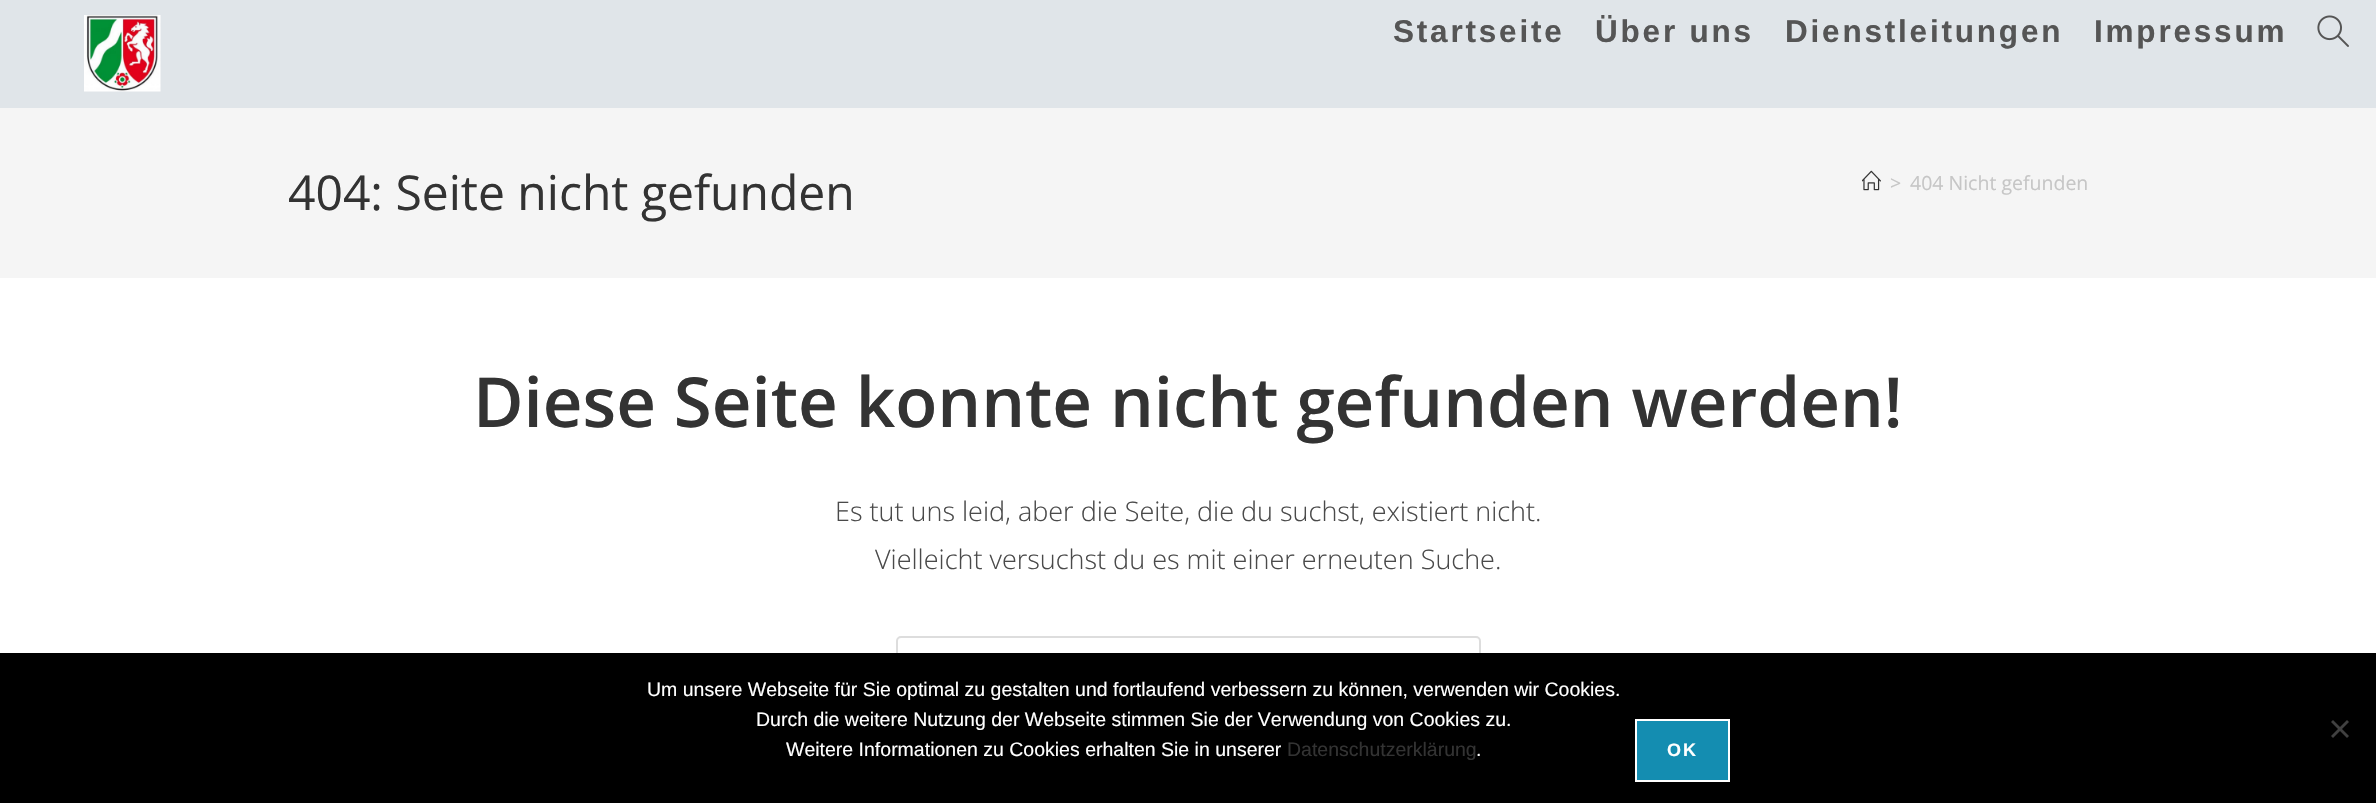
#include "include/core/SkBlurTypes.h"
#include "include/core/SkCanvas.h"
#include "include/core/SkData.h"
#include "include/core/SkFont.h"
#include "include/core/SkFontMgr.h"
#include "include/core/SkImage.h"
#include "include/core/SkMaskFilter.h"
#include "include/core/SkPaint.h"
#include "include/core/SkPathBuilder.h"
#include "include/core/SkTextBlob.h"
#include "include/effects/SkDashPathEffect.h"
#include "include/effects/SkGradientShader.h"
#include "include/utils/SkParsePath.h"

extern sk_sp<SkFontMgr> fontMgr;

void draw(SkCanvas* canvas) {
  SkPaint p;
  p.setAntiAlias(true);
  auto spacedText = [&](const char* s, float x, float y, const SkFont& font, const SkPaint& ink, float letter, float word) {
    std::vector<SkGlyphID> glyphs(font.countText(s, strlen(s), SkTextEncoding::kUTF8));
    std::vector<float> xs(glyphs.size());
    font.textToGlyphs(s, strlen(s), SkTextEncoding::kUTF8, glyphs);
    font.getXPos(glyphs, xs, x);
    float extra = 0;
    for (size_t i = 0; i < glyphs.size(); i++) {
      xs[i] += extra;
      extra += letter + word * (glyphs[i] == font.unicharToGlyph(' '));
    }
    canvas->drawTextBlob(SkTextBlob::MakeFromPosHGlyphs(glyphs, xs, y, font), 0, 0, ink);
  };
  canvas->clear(SK_ColorWHITE);
  p.setColor(SkColorSetRGB(224, 229, 233));
  canvas->drawRect(SkRect::MakeLTRB(0, 0, 2376, 108), p);
  canvas->drawImageRect(SkImages::DeferredFromEncodedData(SkData::MakeFromFileName("images/1.png")), SkRect::MakeLTRB(84, 15, 161, 92), SkSamplingOptions());
  canvas->drawImageRect(SkImages::DeferredFromEncodedData(SkData::MakeFromFileName("images/2.png")), SkRect::MakeLTRB(2317, 15, 2349, 47), SkSamplingOptions());
  p.setColor(SkColorSetRGB(245, 245, 245));
  canvas->drawRect(SkRect::MakeLTRB(0, 108, 2376, 278), p);
  canvas->drawImageRect(SkImages::DeferredFromEncodedData(SkData::MakeFromFileName("images/3.png")), SkRect::MakeLTRB(1862, 170, 1881, 191), SkSamplingOptions());
  p.setStyle(SkPaint::kStroke_Style);
  p.setStrokeWidth(2);
  p.setColor(SkColorSetRGB(221, 221, 221));
  canvas->drawRoundRect(SkRect::MakeLTRB(897, 637, 1480, 695), 4, 4, p);
  p.setStyle(SkPaint::kFill_Style);
  p.setColor(SK_ColorBLACK);
  canvas->drawRect(SkRect::MakeLTRB(0, 653, 2376, 803), p);
  p.setColor(SkColorSetRGB(64, 64, 64));
  canvas->drawPath(SkPathBuilder().moveTo(2347, 720).lineTo(2349, 722).lineTo(2333, 738).lineTo(2331, 736).close().detach(), p);
  canvas->drawPath(SkPathBuilder().moveTo(2331, 722).lineTo(2333, 720).lineTo(2349, 736).lineTo(2347, 738).close().detach(), p);
  p.setColor(SkColorSetRGB(20, 141, 177));
  canvas->drawRect(SkRect::MakeLTRB(1636, 720, 1729, 781), p);
  p.setStyle(SkPaint::kStroke_Style);
  p.setColor(SK_ColorWHITE);
  canvas->drawRect(SkRect::MakeLTRB(1636, 720, 1729, 781), p);
  SkFont font1(fontMgr->matchFamilyStyle("Liberation Sans", SkFontStyle::Bold()), 31.5f);
  font1.setSubpixel(true);
  p.setStyle(SkPaint::kFill_Style);
  p.setColor(SkColorSetRGB(85, 85, 85));
  spacedText("Startseite", 1393, 42, font1, p, 2.8f, 0);
  spacedText("Über uns", 1595, 42, font1, p, 2.8f, 0);
  spacedText("Dienstleitungen", 1785, 42, font1, p, 2.8f, 0);
  spacedText("Impressum", 2094, 42, font1, p, 2.8f, 0);
  SkFont font2(fontMgr->matchFamilyStyle("Open Sans", SkFontStyle::Normal()), 48);
  font2.setSubpixel(true);
  p.setColor(SkColorSetRGB(51, 51, 51));
  canvas->drawString("404: Seite nicht gefunden", 288, 210, font2, p);
  SkFont font3(fontMgr->matchFamilyStyle("Open Sans", SkFontStyle::Normal()), 19.5f);
  font3.setSubpixel(true);
  p.setColor(SkColorSetRGB(198, 198, 198));
  canvas->drawString(">", 1890, 190, font3, p);
  canvas->drawString("404 Nicht gefunden", 1910, 190, font3, p);
  SkFont font4(fontMgr->matchFamilyStyle("Open Sans", SkFontStyle(600, SkFontStyle::kNormal_Width, SkFontStyle::kUpright_Slant)), 69);
  font4.setSubpixel(true);
  p.setColor(SkColorSetRGB(51, 51, 51));
  canvas->drawString("Diese Seite konnte nicht gefunden werden!", 473, 427, font4, p);
  SkFont font5(fontMgr->matchFamilyStyle("Open Sans", SkFontStyle(300, SkFontStyle::kNormal_Width, SkFontStyle::kUpright_Slant)), 27);
  font5.setSubpixel(true);
  p.setColor(SkColorSetRGB(74, 74, 74));
  canvas->drawString("Es tut uns leid, aber die Seite, die du suchst, existiert nicht.", 835, 521, font5, p);
  canvas->drawString("Vielleicht versuchst du es mit einer erneuten Suche.", 875, 569, font5, p);
  SkFont font6(fontMgr->matchFamilyStyle("Liberation Sans", SkFontStyle::Normal()), 19.5f);
  font6.setSubpixel(true);
  p.setColor(SK_ColorWHITE);
  canvas->drawString("Um unsere Webseite für Sie optimal zu gestalten und fortlaufend verbessern zu können, verwenden wir Cookies.", 647, 696, font6, p);
  canvas->drawString("Durch die weitere Nutzung der Webseite stimmen Sie der Verwendung von Cookies zu.", 756, 726, font6, p);
  canvas->drawString("Weitere Informationen zu Cookies erhalten Sie in unserer", 786, 756, font6, p);
  p.setColor(SkColorSetRGB(51, 51, 51));
  canvas->drawString("Datenschutzerklärung", 1287, 756, font6, p);
  p.setColor(SK_ColorWHITE);
  canvas->drawString(".", 1476, 756, font6, p);
  SkFont font7(fontMgr->matchFamilyStyle("Liberation Sans", SkFontStyle::Bold()), 18);
  font7.setSubpixel(true);
  spacedText("OK", 1667, 756, font7, p, 2, 0);
}
